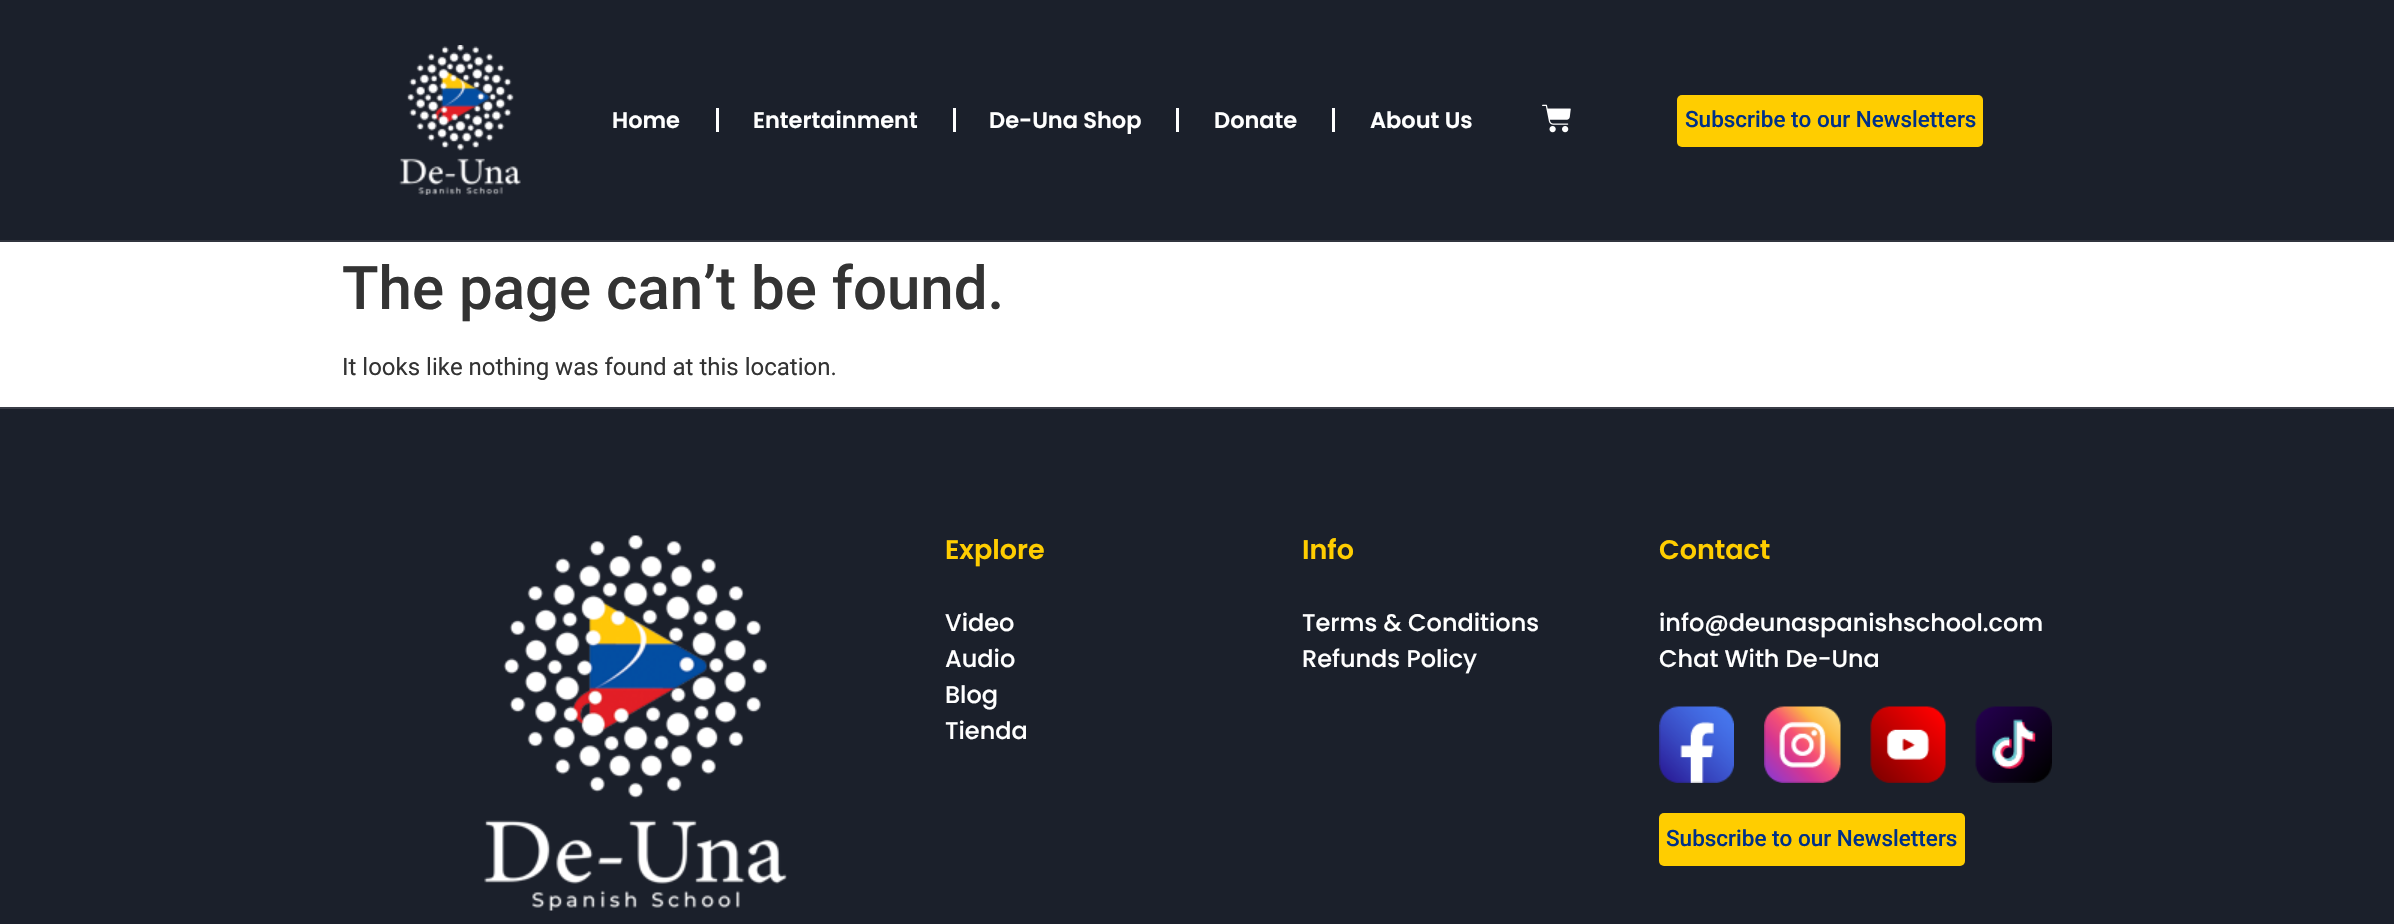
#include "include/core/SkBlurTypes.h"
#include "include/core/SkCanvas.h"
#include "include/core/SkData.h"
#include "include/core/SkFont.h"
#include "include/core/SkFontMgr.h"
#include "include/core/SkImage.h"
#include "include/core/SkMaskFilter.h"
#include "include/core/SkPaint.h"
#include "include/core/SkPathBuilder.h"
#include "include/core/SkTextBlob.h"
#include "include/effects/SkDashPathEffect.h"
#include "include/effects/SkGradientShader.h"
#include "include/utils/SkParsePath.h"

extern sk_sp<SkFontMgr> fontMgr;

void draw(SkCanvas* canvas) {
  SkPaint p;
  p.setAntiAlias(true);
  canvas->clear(SK_ColorWHITE);
  p.setColor(SkColorSetRGB(27, 32, 43));
  canvas->drawRect(SkRect::MakeLTRB(0, 0, 2394, 240), p);
  p.setColor(SkColorSetRGB(48, 52, 62));
  canvas->drawRect(SkRect::MakeLTRB(0, 240, 2394, 242), p);
  canvas->drawImageRect(SkImages::DeferredFromEncodedData(SkData::MakeFromFileName("images/1.png")), SkRect::MakeLTRB(399, 45, 521, 195), SkSamplingOptions());
  p.setColor(SK_ColorWHITE);
  canvas->drawRect(SkRect::MakeLTRB(716, 108, 719, 132), p);
  canvas->drawRect(SkRect::MakeLTRB(953, 108, 956, 132), p);
  canvas->drawRect(SkRect::MakeLTRB(1176, 108, 1179, 132), p);
  canvas->drawRect(SkRect::MakeLTRB(1332, 108, 1335, 132), p);
  canvas->drawImageRect(SkImages::DeferredFromEncodedData(SkData::MakeFromFileName("images/2.png")), SkRect::MakeLTRB(1542, 104, 1571, 133), SkSamplingOptions());
  p.setColor(SkColorSetRGB(255, 205, 0));
  canvas->drawRoundRect(SkRect::MakeLTRB(1677, 95, 1983, 147), 5, 5, p);
  p.setColor(SkColorSetRGB(27, 32, 43));
  canvas->drawRect(SkRect::MakeLTRB(0, 409, 2394, 924), p);
  p.setColor(SkColorSetRGB(57, 61, 71));
  canvas->drawRect(SkRect::MakeLTRB(0, 407, 2394, 409), p);
  canvas->drawImageRect(SkImages::DeferredFromEncodedData(SkData::MakeFromFileName("images/3.png")), SkRect::MakeLTRB(484, 535, 787, 911), SkSamplingOptions());
  canvas->drawImageRect(SkImages::DeferredFromEncodedData(SkData::MakeFromFileName("images/4.png")), SkRect::MakeLTRB(1659, 706, 1734, 783), SkSamplingOptions());
  canvas->drawImageRect(SkImages::DeferredFromEncodedData(SkData::MakeFromFileName("images/5.png")), SkRect::MakeLTRB(1764, 706, 1841, 783), SkSamplingOptions());
  canvas->drawImageRect(SkImages::DeferredFromEncodedData(SkData::MakeFromFileName("images/6.png")), SkRect::MakeLTRB(1870, 706, 1946, 783), SkSamplingOptions());
  canvas->drawImageRect(SkImages::DeferredFromEncodedData(SkData::MakeFromFileName("images/7.png")), SkRect::MakeLTRB(1975, 706, 2052, 783), SkSamplingOptions());
  p.setColor(SkColorSetRGB(255, 205, 0));
  canvas->drawRoundRect(SkRect::MakeLTRB(1659, 813, 1965, 866), 5, 5, p);
  SkFont font1(fontMgr->matchFamilyStyle("Poppins", SkFontStyle(600, SkFontStyle::kNormal_Width, SkFontStyle::kUpright_Slant)), 22.5f);
  font1.setSubpixel(true);
  p.setColor(SK_ColorWHITE);
  canvas->drawString("Home", 612, 128, font1, p);
  canvas->drawString("Entertainment", 753, 128, font1, p);
  canvas->drawString("De-Una Shop", 989, 128, font1, p);
  canvas->drawString("Donate", 1214, 128, font1, p);
  canvas->drawString("About Us", 1370, 128, font1, p);
  SkFont font2(fontMgr->matchFamilyStyle("Roboto", SkFontStyle(500, SkFontStyle::kNormal_Width, SkFontStyle::kUpright_Slant)), 22.5f);
  font2.setSubpixel(true);
  p.setColor(SkColorSetRGB(0, 48, 135));
  canvas->drawString("Subscribe to our Newsletters", 1685, 127, font2, p);
  SkFont font3(fontMgr->matchFamilyStyle("Roboto", SkFontStyle(500, SkFontStyle::kNormal_Width, SkFontStyle::kUpright_Slant)), 60);
  font3.setSubpixel(true);
  p.setColor(SkColorSetRGB(51, 51, 51));
  canvas->drawString("The page can’t be found.", 342, 309, font3, p);
  SkFont font4(fontMgr->matchFamilyStyle("Roboto", SkFontStyle::Normal()), 24);
  font4.setSubpixel(true);
  canvas->drawString("It looks like nothing was found at this location.", 342, 375, font4, p);
  SkFont font5(fontMgr->matchFamilyStyle("Poppins", SkFontStyle(600, SkFontStyle::kNormal_Width, SkFontStyle::kUpright_Slant)), 27);
  font5.setSubpixel(true);
  p.setColor(SkColorSetRGB(255, 205, 0));
  canvas->drawString("Explore", 945, 559, font5, p);
  SkFont font6(fontMgr->matchFamilyStyle("Poppins", SkFontStyle(500, SkFontStyle::kNormal_Width, SkFontStyle::kUpright_Slant)), 24);
  font6.setSubpixel(true);
  p.setColor(SK_ColorWHITE);
  canvas->drawString("Video", 945, 631, font6, p);
  canvas->drawString("Audio", 945, 667, font6, p);
  canvas->drawString("Blog", 945, 703, font6, p);
  canvas->drawString("Tienda", 945, 739, font6, p);
  p.setColor(SkColorSetRGB(255, 205, 0));
  canvas->drawString("Info", 1302, 559, font5, p);
  p.setColor(SK_ColorWHITE);
  canvas->drawString("Terms & Conditions", 1302, 631, font6, p);
  canvas->drawString("Refunds Policy", 1302, 667, font6, p);
  p.setColor(SkColorSetRGB(255, 205, 0));
  canvas->drawString("Contact", 1659, 559, font5, p);
  p.setColor(SK_ColorWHITE);
  canvas->drawString("info@deunaspanishschool.com", 1659, 631, font6, p);
  canvas->drawString("Chat With De-Una", 1659, 667, font6, p);
  p.setColor(SkColorSetRGB(0, 48, 135));
  canvas->drawString("Subscribe to our Newsletters", 1666, 846, font2, p);
}
